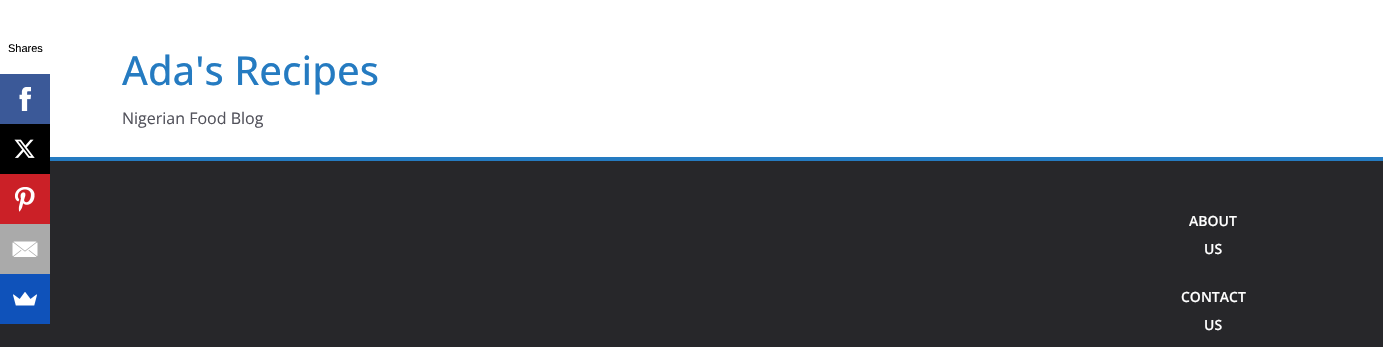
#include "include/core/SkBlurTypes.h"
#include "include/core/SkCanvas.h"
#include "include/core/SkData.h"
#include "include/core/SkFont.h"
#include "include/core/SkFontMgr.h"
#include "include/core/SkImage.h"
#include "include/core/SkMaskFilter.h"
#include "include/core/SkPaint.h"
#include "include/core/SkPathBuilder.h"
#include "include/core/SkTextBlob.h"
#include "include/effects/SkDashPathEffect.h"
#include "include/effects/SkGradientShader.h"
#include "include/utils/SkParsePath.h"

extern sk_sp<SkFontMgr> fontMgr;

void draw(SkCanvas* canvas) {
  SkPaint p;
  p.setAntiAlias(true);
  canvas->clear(SK_ColorWHITE);
  p.setColor(SkColorSetRGB(59, 89, 152));
  canvas->drawRect(SkRect::MakeLTRB(0, 74, 50, 124), p);
  canvas->drawImageRect(SkImages::DeferredFromEncodedData(SkData::MakeFromFileName("images/1.png")), SkRect::MakeLTRB(19, 87, 31, 111), SkSamplingOptions());
  p.setColor(SkColorSetRGB(39, 39, 42));
  canvas->drawRect(SkRect::MakeLTRB(0, 161, 1383, 347), p);
  p.setColor(SK_ColorBLACK);
  canvas->drawRect(SkRect::MakeLTRB(0, 124, 50, 174), p);
  canvas->drawImageRect(SkImages::DeferredFromEncodedData(SkData::MakeFromFileName("images/2.png")), SkRect::MakeLTRB(14, 139, 35, 158), SkSamplingOptions());
  p.setColor(SkColorSetRGB(203, 32, 39));
  canvas->drawRect(SkRect::MakeLTRB(0, 174, 50, 224), p);
  canvas->drawImageRect(SkImages::DeferredFromEncodedData(SkData::MakeFromFileName("images/3.png")), SkRect::MakeLTRB(15, 187, 35, 212), SkSamplingOptions());
  p.setColor(SkColorSetRGB(170, 170, 170));
  canvas->drawRect(SkRect::MakeLTRB(0, 224, 50, 274), p);
  canvas->drawImageRect(SkImages::DeferredFromEncodedData(SkData::MakeFromFileName("images/4.png")), SkRect::MakeLTRB(12, 241, 38, 257), SkSamplingOptions());
  p.setColor(SkColorSetRGB(15, 82, 186));
  canvas->drawRect(SkRect::MakeLTRB(0, 274, 50, 324), p);
  canvas->drawImageRect(SkImages::DeferredFromEncodedData(SkData::MakeFromFileName("images/5.png")), SkRect::MakeLTRB(13, 292, 37, 306), SkSamplingOptions());
  p.setColor(SkColorSetRGB(37, 123, 193));
  canvas->drawRect(SkRect::MakeLTRB(50, 157, 1383, 161), p);
  SkFont font1(fontMgr->matchFamilyStyle("Liberation Sans", SkFontStyle::Normal()), 11);
  font1.setSubpixel(true);
  p.setColor(SK_ColorBLACK);
  canvas->drawString("Shares", 8, 52, font1, p);
  SkFont font2(fontMgr->matchFamilyStyle("Open Sans", SkFontStyle(500, SkFontStyle::kNormal_Width, SkFontStyle::kUpright_Slant)), 40);
  font2.setSubpixel(true);
  p.setColor(SkColorSetRGB(37, 123, 193));
  canvas->drawString("Ada's Recipes", 122, 85, font2, p);
  SkFont font3(fontMgr->matchFamilyStyle("Open Sans", SkFontStyle::Normal()), 16);
  font3.setSubpixel(true);
  p.setColor(SkColorSetRGB(82, 82, 91));
  canvas->drawString("Nigerian Food Blog", 122, 124, font3, p);
  SkFont font4(fontMgr->matchFamilyStyle("Open Sans", SkFontStyle(600, SkFontStyle::kNormal_Width, SkFontStyle::kUpright_Slant)), 14);
  font4.setSubpixel(true);
  p.setColor(SK_ColorWHITE);
  canvas->drawString("ABOUT", 1189, 226, font4, p);
  canvas->drawString("US", 1204, 254, font4, p);
  canvas->drawString("CONTACT", 1181, 302, font4, p);
  canvas->drawString("US", 1204, 330, font4, p);
}
